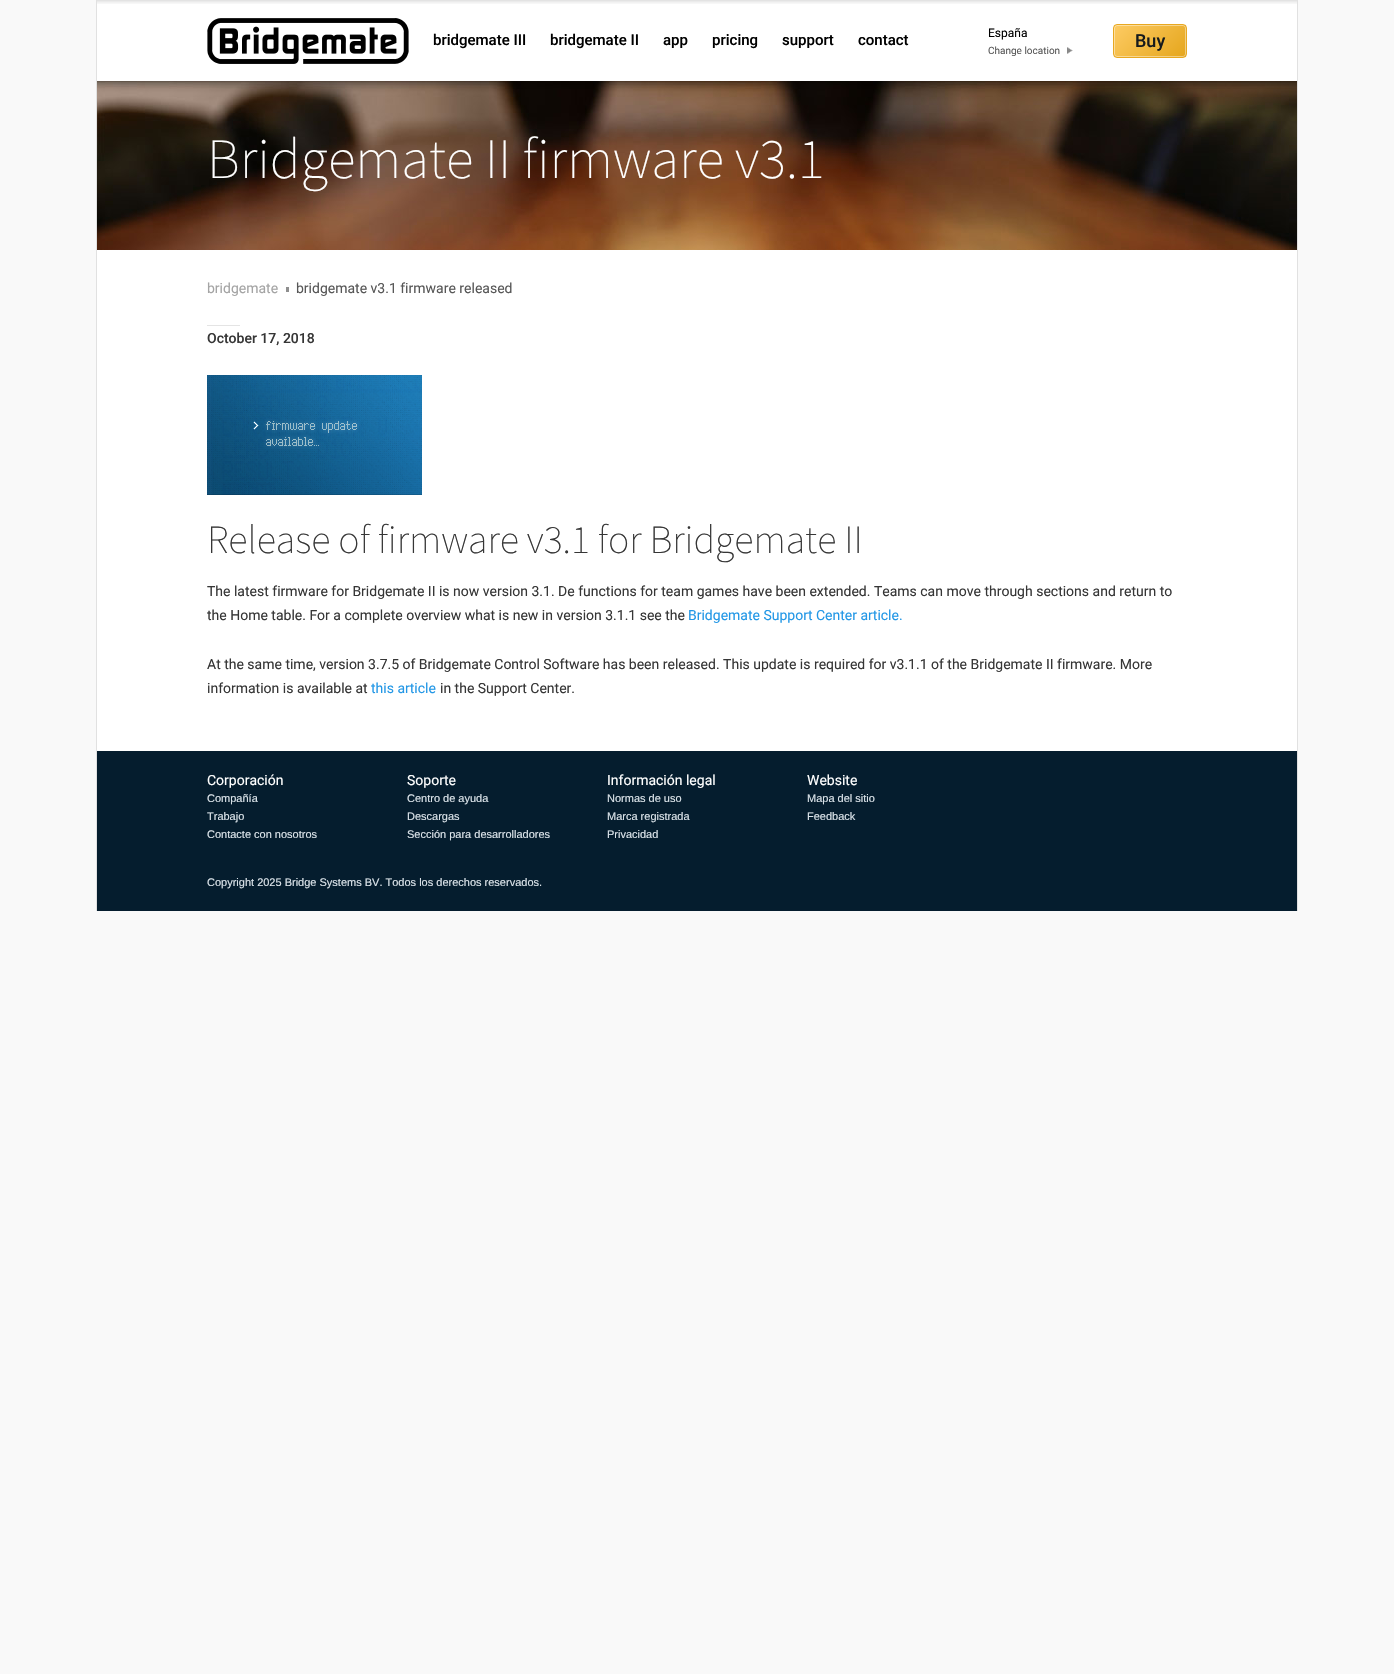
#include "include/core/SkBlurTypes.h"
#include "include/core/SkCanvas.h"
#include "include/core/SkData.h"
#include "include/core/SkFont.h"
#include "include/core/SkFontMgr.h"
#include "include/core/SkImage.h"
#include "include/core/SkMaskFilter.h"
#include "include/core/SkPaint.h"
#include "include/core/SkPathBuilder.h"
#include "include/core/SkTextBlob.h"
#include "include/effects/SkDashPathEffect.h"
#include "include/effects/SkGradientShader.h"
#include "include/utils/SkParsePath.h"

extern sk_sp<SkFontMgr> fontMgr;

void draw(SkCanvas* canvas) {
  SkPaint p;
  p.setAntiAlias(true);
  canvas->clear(SkColorSetRGB(249, 249, 249));
  p.setColor(SK_ColorWHITE);
  canvas->drawRect(SkRect::MakeLTRB(97, 4, 1297, 751), p);
  p.setColor(SkColorSetRGB(225, 225, 225));
  canvas->drawRect(SkRect::MakeLTRB(1297, 0, 1298, 911), p);
  canvas->drawRect(SkRect::MakeLTRB(96, 0, 97, 911), p);
  canvas->drawImageRect(SkImages::DeferredFromEncodedData(SkData::MakeFromFileName("images/1.png")), SkRect::MakeLTRB(97, 0, 1297, 4), SkSamplingOptions());
  canvas->drawImageRect(SkImages::DeferredFromEncodedData(SkData::MakeFromFileName("images/2.png")), SkRect::MakeLTRB(207, 18, 409, 64), SkSamplingOptions());
  canvas->drawImageRect(SkImages::DeferredFromEncodedData(SkData::MakeFromFileName("images/3.png")), SkRect::MakeLTRB(1067, 47, 1073, 54), SkSamplingOptions());
  canvas->save();
  canvas->clipPath(SkPathBuilder().moveTo(1117, 24).lineTo(1183, 24).cubicTo(1185, 24, 1187, 26, 1187, 28).lineTo(1187, 54).cubicTo(1187, 56, 1185, 58, 1183, 58).lineTo(1117, 58).cubicTo(1115, 58, 1113, 56, 1113, 54).lineTo(1113, 28).cubicTo(1113, 26, 1115, 24, 1117, 24).close().detach(), true);
  {
    const SkColor colors[] = {SkColorSetRGB(253, 203, 99), SkColorSetRGB(229, 166, 29)};
    const float stops[] = {0, 1};
    const SkPoint ends[] = {{1124, 15}, {1176, 67}};
    p.setShader(SkGradientShader::MakeLinear(ends, colors, stops, 2, SkTileMode::kClamp));
    p.setAlpha(255);
  }
  canvas->drawRect(SkRect::MakeLTRB(1114, 25, 1186, 57), p);
  canvas->restore();
  p.setStyle(SkPaint::kStroke_Style);
  p.setStrokeWidth(1);
  p.setShader(nullptr);
  p.setColor(SkColorSetARGB(107, 255, 255, 255));
  canvas->drawRoundRect(SkRect::MakeLTRB(1114.5f, 25.5f, 1185.5f, 56.5f), 2.5f, 2.5f, p);
  p.setColor(SkColorSetRGB(232, 168, 33));
  canvas->drawRoundRect(SkRect::MakeLTRB(1113.5f, 24.5f, 1186.5f, 57.5f), 3.5f, 3.5f, p);
  canvas->drawImageRect(SkImages::DeferredFromEncodedData(SkData::MakeFromFileName("images/4.png")), SkRect::MakeLTRB(97, 81, 1297, 250), SkSamplingOptions());
  p.setStyle(SkPaint::kFill_Style);
  p.setColor(SkColorSetRGB(228, 228, 228));
  canvas->drawRect(SkRect::MakeLTRB(207, 325, 240, 326), p);
  p.setColor(SkColorSetRGB(143, 143, 143));
  canvas->drawRect(SkRect::MakeLTRB(286, 287, 289, 292), p);
  canvas->drawImageRect(SkImages::DeferredFromEncodedData(SkData::MakeFromFileName("images/5.png")), SkRect::MakeLTRB(207, 375, 422, 495), SkSamplingOptions());
  p.setColor(SkColorSetRGB(5, 29, 46));
  canvas->drawRect(SkRect::MakeLTRB(97, 751, 1297, 911), p);
  SkFont font1(fontMgr->matchFamilyStyle("Roboto", SkFontStyle(500, SkFontStyle::kNormal_Width, SkFontStyle::kUpright_Slant)), 15);
  font1.setSubpixel(true);
  p.setColor(SK_ColorBLACK);
  canvas->drawString("bridgemate III", 433, 45, font1, p);
  canvas->drawString("bridgemate II", 550, 45, font1, p);
  canvas->drawString("app", 663, 45, font1, p);
  canvas->drawString("pricing", 712, 45, font1, p);
  canvas->drawString("support", 782, 45, font1, p);
  canvas->drawString("contact", 858, 45, font1, p);
  SkFont font2(fontMgr->matchFamilyStyle("Roboto", SkFontStyle::Normal()), 12);
  font2.setSubpixel(true);
  canvas->drawString("España", 988, 37, font2, p);
  SkFont font3(fontMgr->matchFamilyStyle("Roboto", SkFontStyle::Normal()), 10);
  font3.setSubpixel(true);
  p.setColor(SkColorSetRGB(87, 87, 87));
  canvas->drawString("Change location", 988, 54, font3, p);
  SkFont font4(fontMgr->matchFamilyStyle("Roboto", SkFontStyle(500, SkFontStyle::kNormal_Width, SkFontStyle::kUpright_Slant)), 18);
  font4.setSubpixel(true);
  p.setColor(SkColorSetRGB(22, 26, 28));
  canvas->drawString("Buy", 1135, 47, font4, p);
  SkFont font5(fontMgr->matchFamilyStyle("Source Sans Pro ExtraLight", SkFontStyle(200, SkFontStyle::kNormal_Width, SkFontStyle::kUpright_Slant)), 57);
  font5.setSubpixel(true);
  p.setColor(SK_ColorWHITE);
  canvas->drawString("Bridgemate II firmware v3.1", 207, 178, font5, p);
  SkFont font6(fontMgr->matchFamilyStyle("Roboto", SkFontStyle::Normal()), 14);
  font6.setSubpixel(true);
  p.setColor(SkColorSetRGB(164, 164, 164));
  canvas->drawString("bridgemate", 207, 293, font6, p);
  p.setColor(SkColorSetRGB(87, 87, 87));
  canvas->drawString("bridgemate v3.1 firmware released", 296, 293, font6, p);
  SkFont font7(fontMgr->matchFamilyStyle("Roboto", SkFontStyle(500, SkFontStyle::kNormal_Width, SkFontStyle::kUpright_Slant)), 14);
  font7.setSubpixel(true);
  p.setColor(SkColorSetRGB(54, 54, 54));
  canvas->drawString("October 17, 2018", 207, 343, font7, p);
  SkFont font8(fontMgr->matchFamilyStyle("Source Sans Pro ExtraLight", SkFontStyle(200, SkFontStyle::kNormal_Width, SkFontStyle::kUpright_Slant)), 40);
  font8.setSubpixel(true);
  canvas->drawString("Release of firmware v3.1 for Bridgemate II", 207, 553, font8, p);
  canvas->drawString("The latest firmware for Bridgemate II is now version 3.1. De functions for team games have been extended. Teams can move through sections and return to", 207, 596, font6, p);
  canvas->drawString("the Home table. For a complete overview what is new in version 3.1.1 see the", 207, 620, font6, p);
  p.setColor(SkColorSetRGB(34, 151, 230));
  canvas->drawString("Bridgemate Support Center article.", 688, 620, font6, p);
  p.setColor(SkColorSetRGB(54, 54, 54));
  canvas->drawString("At the same time, version 3.7.5 of Bridgemate Control Software has been released. This update is required for v3.1.1 of the Bridgemate II firmware. More", 207, 669, font6, p);
  canvas->drawString("information is available at", 207, 693, font6, p);
  p.setColor(SkColorSetRGB(34, 151, 230));
  canvas->drawString("this article", 371, 693, font6, p);
  p.setColor(SkColorSetRGB(54, 54, 54));
  canvas->drawString("in the Support Center.", 440, 693, font6, p);
  p.setColor(SK_ColorWHITE);
  canvas->drawString("Corporación", 207, 785, font6, p);
  SkFont font9(fontMgr->matchFamilyStyle("Liberation Sans", SkFontStyle::Normal()), 11);
  font9.setSubpixel(true);
  p.setColor(SkColorSetRGB(220, 228, 234));
  canvas->drawString("Compañía", 207, 802, font9, p);
  canvas->drawString("Trabajo", 207, 820, font9, p);
  canvas->drawString("Contacte con nosotros", 207, 838, font9, p);
  p.setColor(SK_ColorWHITE);
  canvas->drawString("Soporte", 407, 785, font6, p);
  p.setColor(SkColorSetRGB(220, 228, 234));
  canvas->drawString("Centro de ayuda", 407, 802, font9, p);
  canvas->drawString("Descargas", 407, 820, font9, p);
  canvas->drawString("Sección para desarrolladores", 407, 838, font9, p);
  p.setColor(SK_ColorWHITE);
  canvas->drawString("Información legal", 607, 785, font6, p);
  p.setColor(SkColorSetRGB(220, 228, 234));
  canvas->drawString("Normas de uso", 607, 802, font9, p);
  canvas->drawString("Marca registrada", 607, 820, font9, p);
  canvas->drawString("Privacidad", 607, 838, font9, p);
  p.setColor(SK_ColorWHITE);
  canvas->drawString("Website", 807, 785, font6, p);
  p.setColor(SkColorSetRGB(220, 228, 234));
  canvas->drawString("Mapa del sitio", 807, 802, font9, p);
  canvas->drawString("Feedback", 807, 820, font9, p);
  canvas->drawString("Copyright 2025 Bridge Systems BV. Todos los derechos reservados.", 207, 886, font9, p);
}
